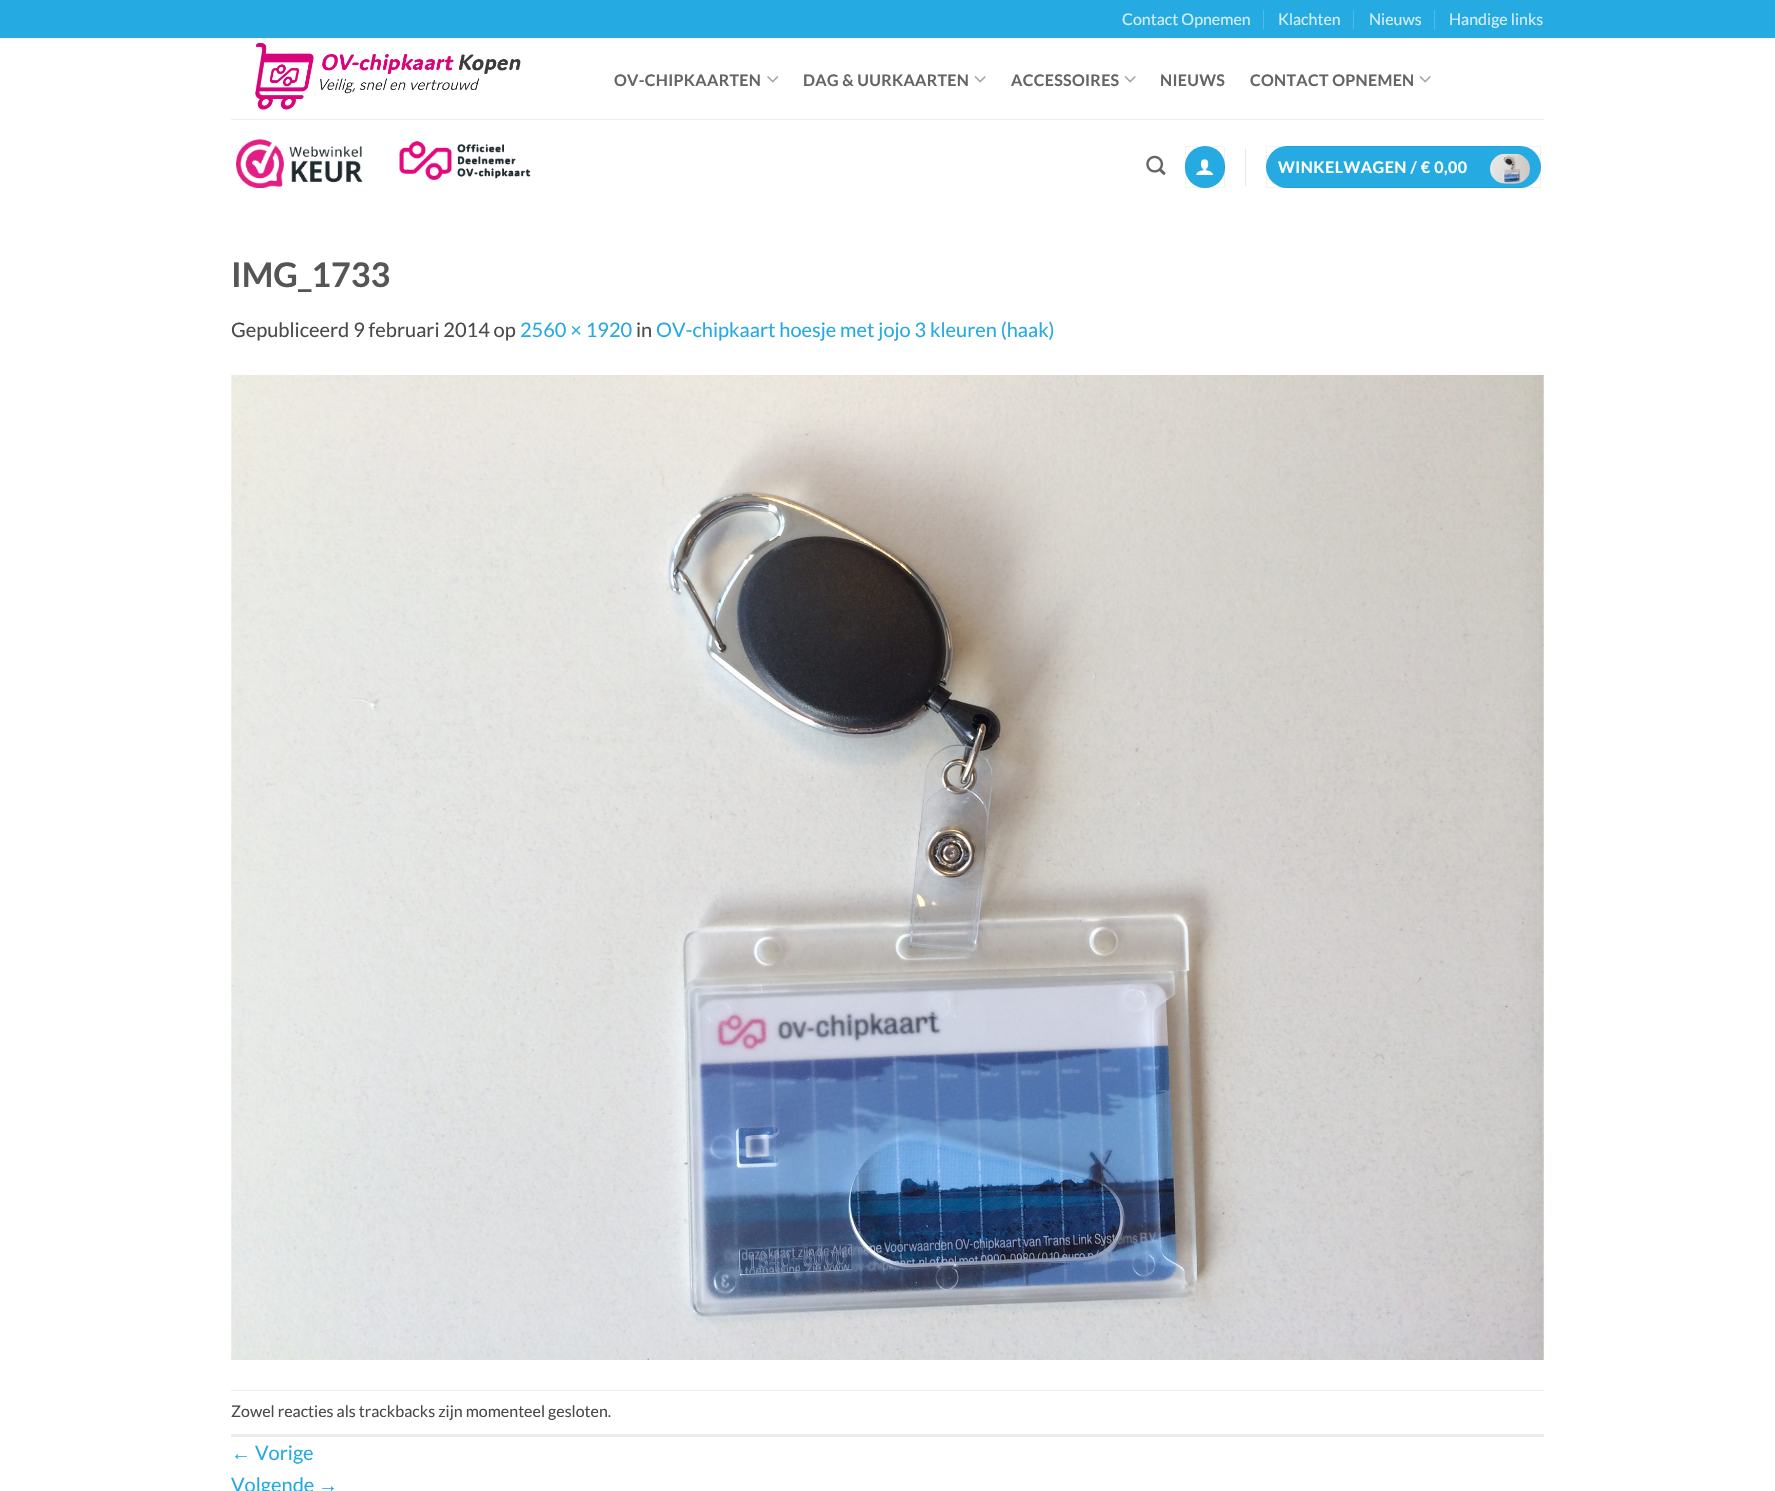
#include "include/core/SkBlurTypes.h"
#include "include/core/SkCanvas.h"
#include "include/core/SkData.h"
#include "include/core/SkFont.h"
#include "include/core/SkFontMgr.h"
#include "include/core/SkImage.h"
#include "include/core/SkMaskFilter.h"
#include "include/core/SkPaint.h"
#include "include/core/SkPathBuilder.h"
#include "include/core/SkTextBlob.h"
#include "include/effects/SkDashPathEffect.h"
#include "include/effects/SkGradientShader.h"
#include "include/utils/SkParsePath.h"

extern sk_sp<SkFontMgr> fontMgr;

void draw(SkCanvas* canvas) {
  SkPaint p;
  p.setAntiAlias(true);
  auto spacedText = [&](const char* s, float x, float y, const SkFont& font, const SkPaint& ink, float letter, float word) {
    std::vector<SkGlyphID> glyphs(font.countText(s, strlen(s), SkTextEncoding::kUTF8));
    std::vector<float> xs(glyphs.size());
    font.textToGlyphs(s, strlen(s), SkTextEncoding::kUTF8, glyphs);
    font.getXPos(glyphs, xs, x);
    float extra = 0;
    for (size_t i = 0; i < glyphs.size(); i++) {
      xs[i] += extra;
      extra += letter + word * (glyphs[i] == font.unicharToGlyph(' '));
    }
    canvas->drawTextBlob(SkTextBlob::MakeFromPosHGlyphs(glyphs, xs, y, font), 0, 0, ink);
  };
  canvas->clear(SK_ColorWHITE);
  p.setColor(SkColorSetRGB(37, 170, 225));
  canvas->drawRect(SkRect::MakeLTRB(0, 0, 1775, 38), p);
  p.setColor(SkColorSetRGB(81, 187, 231));
  canvas->drawRect(SkRect::MakeLTRB(1263, 10, 1264, 29), p);
  canvas->drawRect(SkRect::MakeLTRB(1353, 10, 1354, 29), p);
  canvas->drawRect(SkRect::MakeLTRB(1434, 10, 1435, 29), p);
  canvas->drawImageRect(SkImages::DeferredFromEncodedData(SkData::MakeFromFileName("images/1.png")), SkRect::MakeLTRB(255, 43, 521, 110), SkSamplingOptions());
  canvas->drawImageRect(SkImages::DeferredFromEncodedData(SkData::MakeFromFileName("images/2.png")), SkRect::MakeLTRB(767, 76, 779, 83), SkSamplingOptions());
  canvas->drawImageRect(SkImages::DeferredFromEncodedData(SkData::MakeFromFileName("images/3.png")), SkRect::MakeLTRB(974, 76, 986, 83), SkSamplingOptions());
  canvas->drawImageRect(SkImages::DeferredFromEncodedData(SkData::MakeFromFileName("images/3.png")), SkRect::MakeLTRB(1124, 76, 1136, 83), SkSamplingOptions());
  canvas->drawImageRect(SkImages::DeferredFromEncodedData(SkData::MakeFromFileName("images/3.png")), SkRect::MakeLTRB(1419, 76, 1431, 83), SkSamplingOptions());
  p.setColor(SkColorSetRGB(237, 237, 237));
  canvas->drawRect(SkRect::MakeLTRB(231, 119, 1544, 120), p);
  canvas->drawImageRect(SkImages::DeferredFromEncodedData(SkData::MakeFromFileName("images/4.png")), SkRect::MakeLTRB(236, 139, 363, 188), SkSamplingOptions());
  canvas->drawImageRect(SkImages::DeferredFromEncodedData(SkData::MakeFromFileName("images/5.png")), SkRect::MakeLTRB(399, 141, 531, 180), SkSamplingOptions());
  canvas->drawImageRect(SkImages::DeferredFromEncodedData(SkData::MakeFromFileName("images/6.png")), SkRect::MakeLTRB(1146, 155, 1166, 175), SkSamplingOptions());
  p.setColor(SkColorSetRGB(37, 170, 225));
  canvas->drawRoundRect(SkRect::MakeLTRB(1185, 146, 1225, 188), 20, 20, p);
  p.setStyle(SkPaint::kStroke_Style);
  p.setStrokeWidth(1);
  p.setColor(SkColorSetARGB(13, 0, 0, 0));
  canvas->drawRect(SkRect::MakeLTRB(1185.5f, 146.5f, 1224.5f, 187.5f), p);
  canvas->drawImageRect(SkImages::DeferredFromEncodedData(SkData::MakeFromFileName("images/7.png")), SkRect::MakeLTRB(1196, 159, 1213, 175), SkSamplingOptions());
  p.setStyle(SkPaint::kFill_Style);
  p.setColor(SkColorSetRGB(230, 230, 230));
  canvas->drawRect(SkRect::MakeLTRB(1245, 149, 1246, 186), p);
  p.setColor(SkColorSetRGB(37, 170, 225));
  canvas->drawRoundRect(SkRect::MakeLTRB(1266, 146, 1541, 188), 21, 21, p);
  p.setStyle(SkPaint::kStroke_Style);
  p.setColor(SkColorSetARGB(13, 0, 0, 0));
  canvas->drawRect(SkRect::MakeLTRB(1266.5f, 146.5f, 1540.5f, 187.5f), p);
  canvas->drawImageRect(SkImages::DeferredFromEncodedData(SkData::MakeFromFileName("images/8.png")), SkRect::MakeLTRB(1490, 153, 1530, 184), SkSamplingOptions());
  canvas->drawImageRect(SkImages::DeferredFromEncodedData(SkData::MakeFromFileName("images/9.png")), SkRect::MakeLTRB(231, 375, 1544, 1360), SkSamplingOptions());
  p.setStyle(SkPaint::kFill_Style);
  p.setColor(SkColorSetRGB(236, 236, 236));
  canvas->drawRect(SkRect::MakeLTRB(231, 1390, 1544, 1391), p);
  canvas->drawRect(SkRect::MakeLTRB(231, 1434, 1544, 1437), p);
  SkFont font1(fontMgr->matchFamilyStyle("Lato", SkFontStyle::Normal()), 16);
  font1.setSubpixel(true);
  p.setColor(SkColorSetRGB(211, 238, 249));
  canvas->drawString("Contact Opnemen", 1122, 25, font1, p);
  canvas->drawString("Klachten", 1278, 25, font1, p);
  canvas->drawString("Nieuws", 1369, 25, font1, p);
  canvas->drawString("Handige links", 1449, 25, font1, p);
  SkFont font2(fontMgr->matchFamilyStyle("Lato", SkFontStyle::Bold()), 16);
  font2.setSubpixel(true);
  p.setColor(SkColorSetRGB(101, 101, 101));
  spacedText("OV-CHIPKAARTEN", 614, 86, font2, p, 0.3f, 0);
  spacedText("DAG & UURKAARTEN", 803, 86, font2, p, 0.3f, 0);
  spacedText("ACCESSOIRES", 1011, 86, font2, p, 0.3f, 0);
  spacedText("NIEUWS", 1160, 86, font2, p, 0.3f, 0);
  spacedText("CONTACT OPNEMEN", 1250, 86, font2, p, 0.3f, 0);
  p.setColor(SK_ColorWHITE);
  spacedText("WINKELWAGEN / € 0,00", 1278, 173, font2, p, 0.5f, 0);
  SkFont font3(fontMgr->matchFamilyStyle("Lato", SkFontStyle::Bold()), 34);
  font3.setSubpixel(true);
  p.setColor(SkColorSetRGB(85, 85, 85));
  canvas->drawString("IMG_1733", 231, 287, font3, p);
  SkFont font4(fontMgr->matchFamilyStyle("Lato", SkFontStyle::Normal()), 20);
  font4.setSubpixel(true);
  p.setColor(SkColorSetRGB(74, 74, 74));
  canvas->drawString("Gepubliceerd 9 februari 2014 op", 231, 337, font4, p);
  p.setColor(SkColorSetRGB(37, 170, 225));
  canvas->drawString("2560 × 1920", 520, 337, font4, p);
  p.setColor(SkColorSetRGB(74, 74, 74));
  canvas->drawString("in", 636, 337, font4, p);
  p.setColor(SkColorSetRGB(37, 170, 225));
  canvas->drawString("OV-chipkaart hoesje met jojo 3 kleuren (haak)", 656, 337, font4, p);
  p.setColor(SkColorSetRGB(74, 74, 74));
  canvas->drawString("Zowel reacties als trackbacks zijn momenteel gesloten.", 231, 1417, font1, p);
  SkFont font5(fontMgr->matchFamilyStyle("Liberation Sans", SkFontStyle::Normal()), 20);
  font5.setSubpixel(true);
  p.setColor(SkColorSetRGB(37, 170, 225));
  canvas->drawString("←", 231, 1460, font5, p);
  canvas->drawString("Vorige", 255, 1460, font4, p);
  canvas->drawString("Volgende", 231, 1492, font4, p);
  canvas->drawString("→", 318, 1492, font5, p);
}
